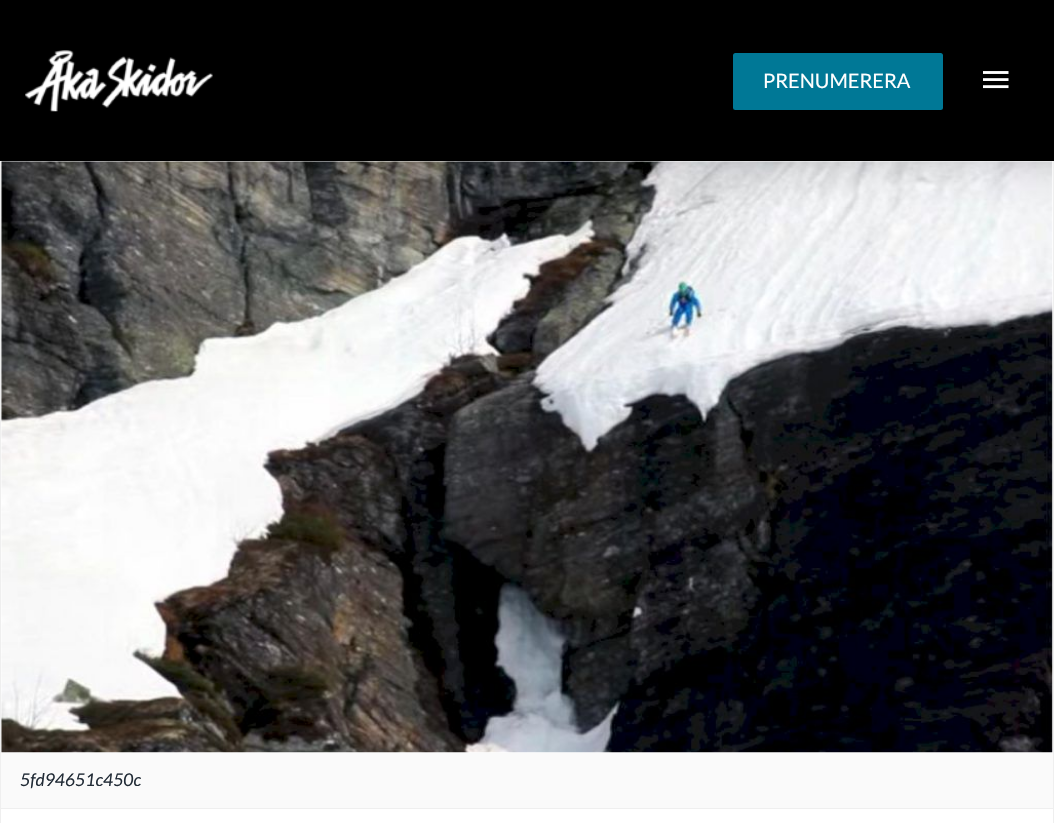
#include "include/core/SkBlurTypes.h"
#include "include/core/SkCanvas.h"
#include "include/core/SkData.h"
#include "include/core/SkFont.h"
#include "include/core/SkFontMgr.h"
#include "include/core/SkImage.h"
#include "include/core/SkMaskFilter.h"
#include "include/core/SkPaint.h"
#include "include/core/SkPathBuilder.h"
#include "include/core/SkTextBlob.h"
#include "include/effects/SkDashPathEffect.h"
#include "include/effects/SkGradientShader.h"
#include "include/utils/SkParsePath.h"

extern sk_sp<SkFontMgr> fontMgr;

void draw(SkCanvas* canvas) {
  SkPaint p;
  p.setAntiAlias(true);
  canvas->clear(SkColorSetRGB(239, 239, 239));
  p.setColor(SK_ColorBLACK);
  canvas->drawRect(SkRect::MakeLTRB(0, 0, 1054, 161), p);
  canvas->drawImageRect(SkImages::DeferredFromEncodedData(SkData::MakeFromFileName("images/1.png")), SkRect::MakeLTRB(25, 50, 213, 112), SkSamplingOptions());
  p.setColor(SkColorSetRGB(0, 120, 150));
  canvas->drawRoundRect(SkRect::MakeLTRB(733, 53, 943, 110), 2.5f, 2.5f, p);
  canvas->drawImageRect(SkImages::DeferredFromEncodedData(SkData::MakeFromFileName("images/2.png")), SkRect::MakeLTRB(983, 71, 1009, 89), SkSamplingOptions());
  p.setColor(SK_ColorWHITE);
  canvas->drawRect(SkRect::MakeLTRB(1, 161, 1053, 823), p);
  canvas->drawImageRect(SkImages::DeferredFromEncodedData(SkData::MakeFromFileName("images/3.png")), SkRect::MakeLTRB(1, 161, 1053, 753), SkSamplingOptions());
  p.setColor(SkColorSetRGB(250, 250, 250));
  canvas->drawRect(SkRect::MakeLTRB(1, 753, 1053, 808), p);
  p.setColor(SkColorSetRGB(239, 239, 239));
  canvas->drawRect(SkRect::MakeLTRB(1, 808, 1053, 809), p);
  SkFont font1(fontMgr->matchFamilyStyle("Lato", SkFontStyle::Normal()), 20);
  font1.setSubpixel(true);
  p.setColor(SK_ColorWHITE);
  canvas->drawString("PRENUMERERA", 763, 88, font1, p);
  SkFont font2(fontMgr->matchFamilyStyle("Lato", SkFontStyle::Italic()), 17.5f);
  font2.setSubpixel(true);
  p.setColor(SkColorSetRGB(33, 43, 54));
  canvas->drawString("5fd94651c450c", 20, 786, font2, p);
}
